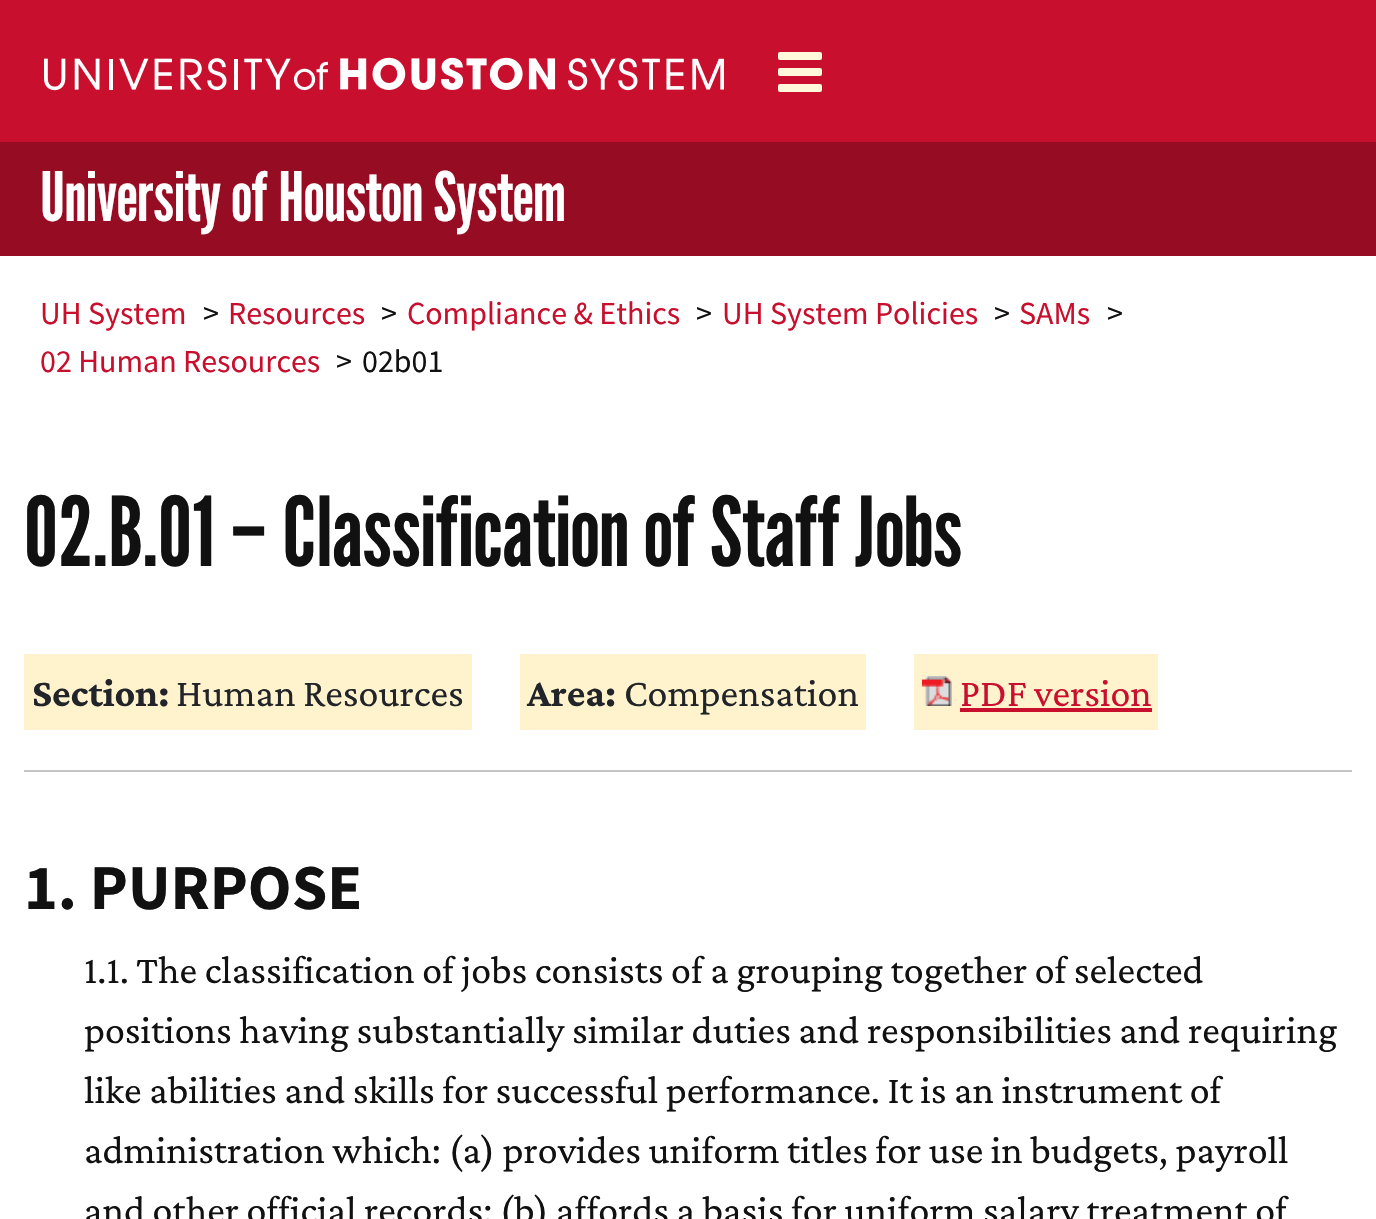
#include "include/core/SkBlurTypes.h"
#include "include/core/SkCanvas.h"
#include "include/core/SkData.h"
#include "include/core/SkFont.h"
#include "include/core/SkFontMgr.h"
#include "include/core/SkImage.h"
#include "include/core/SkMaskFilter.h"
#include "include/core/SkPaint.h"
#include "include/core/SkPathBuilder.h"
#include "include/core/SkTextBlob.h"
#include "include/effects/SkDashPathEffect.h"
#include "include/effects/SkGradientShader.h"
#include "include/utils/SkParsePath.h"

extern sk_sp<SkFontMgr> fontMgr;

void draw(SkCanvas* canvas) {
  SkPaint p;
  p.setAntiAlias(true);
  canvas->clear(SK_ColorWHITE);
  p.setColor(SkColorSetRGB(200, 16, 46));
  canvas->drawRect(SkRect::MakeLTRB(0, 0, 1376, 142), p);
  canvas->drawImageRect(SkImages::DeferredFromEncodedData(SkData::MakeFromFileName("images/1.png")), SkRect::MakeLTRB(44, 57, 724, 91), SkSamplingOptions());
  p.setColor(SkColorSetRGB(255, 249, 217));
  canvas->drawRoundRect(SkRect::MakeLTRB(778, 52, 822, 60), 2, 2, p);
  canvas->drawRoundRect(SkRect::MakeLTRB(778, 68, 822, 76), 2, 2, p);
  canvas->drawRoundRect(SkRect::MakeLTRB(778, 84, 822, 92), 2, 2, p);
  p.setColor(SkColorSetRGB(150, 12, 34));
  canvas->drawRect(SkRect::MakeLTRB(0, 142, 1376, 256), p);
  p.setColor(SkColorSetRGB(255, 243, 205));
  canvas->drawRect(SkRect::MakeLTRB(24, 654, 472, 730), p);
  canvas->drawRect(SkRect::MakeLTRB(520, 654, 866, 730), p);
  canvas->drawRect(SkRect::MakeLTRB(914, 654, 1158, 730), p);
  canvas->drawImageRect(SkImages::DeferredFromEncodedData(SkData::MakeFromFileName("images/2.png")), SkRect::MakeLTRB(922, 676, 952, 706), SkSamplingOptions());
  p.setColor(SkColorSetRGB(200, 16, 46));
  canvas->drawRect(SkRect::MakeLTRB(960, 708, 1152, 712), p);
  p.setColor(SkColorSetRGB(196, 196, 196));
  canvas->drawRect(SkRect::MakeLTRB(24, 770, 1352, 772), p);
  SkFont font1(fontMgr->matchFamilyStyle("League Gothic", SkFontStyle::Normal()), 68);
  font1.setSubpixel(true);
  p.setColor(SK_ColorWHITE);
  canvas->drawString("University of Houston System", 40, 221, font1, p);
  SkFont font2(fontMgr->matchFamilyStyle("Source Sans Pro", SkFontStyle::Normal()), 32);
  font2.setSubpixel(true);
  p.setColor(SkColorSetRGB(200, 16, 46));
  canvas->drawString("UH System", 40, 324, font2, p);
  p.setColor(SkColorSetRGB(17, 17, 17));
  canvas->drawString(">", 203, 324, font2, p);
  p.setColor(SkColorSetRGB(200, 16, 46));
  canvas->drawString("Resources", 228, 324, font2, p);
  p.setColor(SkColorSetRGB(17, 17, 17));
  canvas->drawString(">", 381, 324, font2, p);
  p.setColor(SkColorSetRGB(200, 16, 46));
  canvas->drawString("Compliance & Ethics", 407, 324, font2, p);
  p.setColor(SkColorSetRGB(17, 17, 17));
  canvas->drawString(">", 696, 324, font2, p);
  p.setColor(SkColorSetRGB(200, 16, 46));
  canvas->drawString("UH System Policies", 722, 324, font2, p);
  p.setColor(SkColorSetRGB(17, 17, 17));
  canvas->drawString(">", 994, 324, font2, p);
  p.setColor(SkColorSetRGB(200, 16, 46));
  canvas->drawString("SAMs", 1019, 324, font2, p);
  p.setColor(SkColorSetRGB(17, 17, 17));
  canvas->drawString(">", 1107, 324, font2, p);
  p.setColor(SkColorSetRGB(200, 16, 46));
  canvas->drawString("02 Human Resources", 40, 372, font2, p);
  p.setColor(SkColorSetRGB(17, 17, 17));
  canvas->drawString(">", 336, 372, font2, p);
  canvas->drawString("02b01", 362, 372, font2, p);
  SkFont font3(fontMgr->matchFamilyStyle("League Gothic", SkFontStyle::Normal()), 96);
  font3.setSubpixel(true);
  canvas->drawString("02.B.01 – Classification of Staff Jobs", 24, 566, font3, p);
  SkFont font4(fontMgr->matchFamilyStyle("Crimson Pro", SkFontStyle::Bold()), 40);
  font4.setSubpixel(true);
  p.setColor(SkColorSetRGB(33, 37, 41));
  canvas->drawString("Section:", 32, 706, font4, p);
  SkFont font5(fontMgr->matchFamilyStyle("Crimson Pro", SkFontStyle::Normal()), 40);
  font5.setSubpixel(true);
  canvas->drawString("Human Resources", 176, 706, font5, p);
  canvas->drawString("Area:", 527, 706, font4, p);
  canvas->drawString("Compensation", 624, 706, font5, p);
  p.setColor(SkColorSetRGB(200, 16, 46));
  canvas->drawString("PDF version", 960, 706, font5, p);
  SkFont font6(fontMgr->matchFamilyStyle("Source Sans Pro", SkFontStyle::Bold()), 64);
  font6.setSubpixel(true);
  p.setColor(SkColorSetRGB(17, 17, 17));
  canvas->drawString("1. PURPOSE", 24, 909, font6, p);
  canvas->drawString("1.1. The classification of jobs consists of a grouping together of selected", 84, 983, font5, p);
  canvas->drawString("positions having substantially similar duties and responsibilities and requiring", 84, 1043, font5, p);
  canvas->drawString("like abilities and skills for successful performance. It is an instrument of", 84, 1103, font5, p);
  canvas->drawString("administration which: (a) provides uniform titles for use in budgets, payroll", 84, 1163, font5, p);
  canvas->drawString("and other official records; (b) affords a basis for uniform salary treatment of", 84, 1223, font5, p);
}
